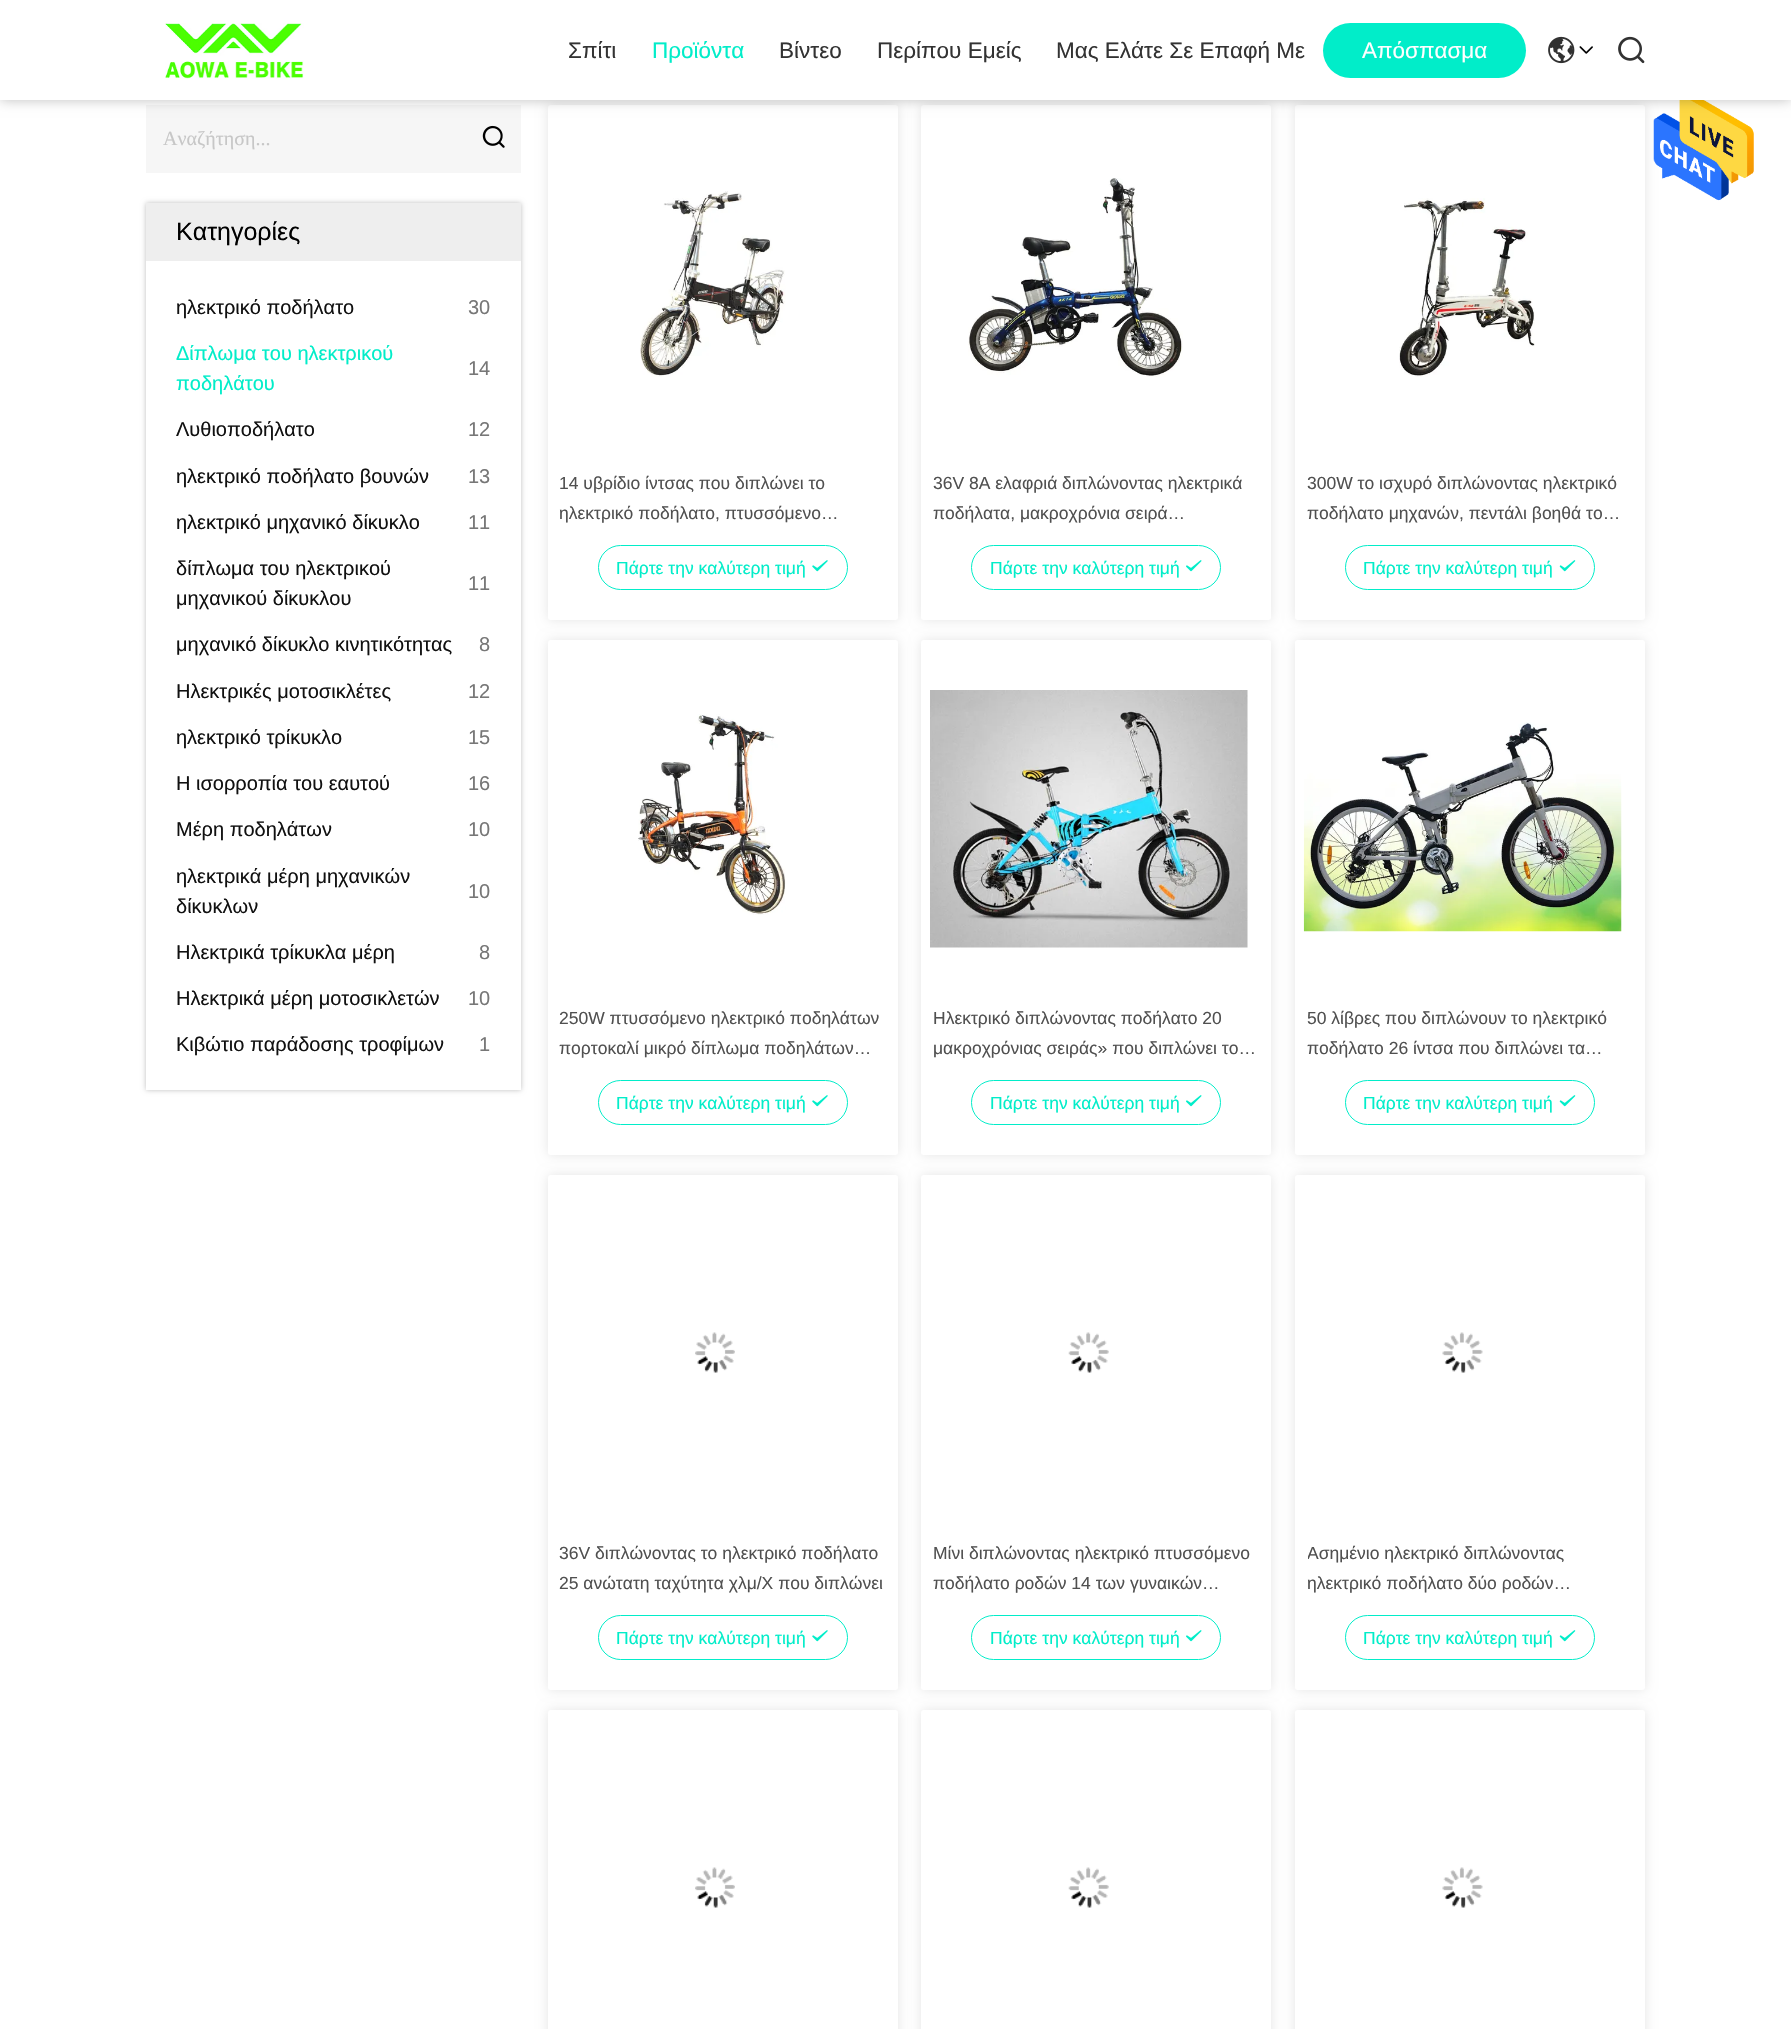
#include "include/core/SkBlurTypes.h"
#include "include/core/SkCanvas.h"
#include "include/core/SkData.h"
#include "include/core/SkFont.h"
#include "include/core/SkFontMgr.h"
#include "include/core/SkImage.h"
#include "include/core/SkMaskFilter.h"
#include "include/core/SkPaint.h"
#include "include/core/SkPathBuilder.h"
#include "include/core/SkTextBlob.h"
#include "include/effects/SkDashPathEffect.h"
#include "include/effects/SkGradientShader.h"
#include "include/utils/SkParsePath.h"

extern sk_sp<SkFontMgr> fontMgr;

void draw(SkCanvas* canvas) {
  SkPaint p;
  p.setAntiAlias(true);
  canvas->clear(SK_ColorWHITE);
  p.setColor(SkColorSetRGB(246, 246, 246));
  canvas->drawRect(SkRect::MakeLTRB(146, 105, 521, 173), p);
  p.setColor(SkColorSetARGB(26, 0, 0, 0));
  p.setMaskFilter(SkMaskFilter::MakeBlur(kNormal_SkBlurStyle, 6));
  canvas->drawRoundRect(SkRect::MakeLTRB(548, 105, 898, 620), 2.5f, 2.5f, p);
  p.setMaskFilter(nullptr);
  p.setColor(SK_ColorWHITE);
  canvas->drawRoundRect(SkRect::MakeLTRB(548, 105, 898, 620), 2.5f, 2.5f, p);
  p.setColor(SkColorSetARGB(26, 0, 0, 0));
  p.setMaskFilter(SkMaskFilter::MakeBlur(kNormal_SkBlurStyle, 6));
  canvas->drawRoundRect(SkRect::MakeLTRB(921, 105, 1271, 620), 2.5f, 2.5f, p);
  p.setMaskFilter(nullptr);
  p.setColor(SK_ColorWHITE);
  canvas->drawRoundRect(SkRect::MakeLTRB(921, 105, 1271, 620), 2.5f, 2.5f, p);
  canvas->save();
  canvas->clipPath(SkPathBuilder(SkPathFillType::kEvenOdd).moveTo(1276, 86).lineTo(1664, 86).lineTo(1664, 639).lineTo(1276, 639).close().moveTo(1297.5f, 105).lineTo(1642.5f, 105).cubicTo(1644, 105, 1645, 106, 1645, 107.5f).lineTo(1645, 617.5f).cubicTo(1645, 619, 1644, 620, 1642.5f, 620).lineTo(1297.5f, 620).cubicTo(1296, 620, 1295, 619, 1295, 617.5f).lineTo(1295, 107.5f).cubicTo(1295, 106, 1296, 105, 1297.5f, 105).close().detach(), true);
  p.setColor(SkColorSetARGB(26, 0, 0, 0));
  p.setMaskFilter(SkMaskFilter::MakeBlur(kNormal_SkBlurStyle, 6));
  canvas->drawRoundRect(SkRect::MakeLTRB(1295, 105, 1645, 620), 2.5f, 2.5f, p);
  p.setMaskFilter(nullptr);
  canvas->restore();
  canvas->drawImageRect(SkImages::DeferredFromEncodedData(SkData::MakeFromFileName("images/18.png")), SkRect::MakeLTRB(1653, 100, 1754, 201), SkSamplingOptions());
  p.setColor(SkColorSetARGB(64, 0, 0, 0));
  p.setMaskFilter(SkMaskFilter::MakeBlur(kNormal_SkBlurStyle, 6));
  canvas->drawRect(SkRect::MakeLTRB(0, 0, 1791, 100), p);
  p.setMaskFilter(nullptr);
  p.setColor(SK_ColorWHITE);
  canvas->drawRect(SkRect::MakeLTRB(0, 0, 1791, 100), p);
  canvas->drawImageRect(SkImages::DeferredFromEncodedData(SkData::MakeFromFileName("images/1.png")), SkRect::MakeLTRB(165, 23, 304, 79), SkSamplingOptions());
  p.setColor(SkColorSetRGB(1, 237, 201));
  canvas->drawRoundRect(SkRect::MakeLTRB(1323, 23, 1526, 78), 27.5f, 27.5f, p);
  canvas->drawImageRect(SkImages::DeferredFromEncodedData(SkData::MakeFromFileName("images/2.png")), SkRect::MakeLTRB(1548, 36, 1575, 64), SkSamplingOptions());
  canvas->drawImageRect(SkImages::DeferredFromEncodedData(SkData::MakeFromFileName("images/3.png")), SkRect::MakeLTRB(1579, 46, 1593, 54), SkSamplingOptions());
  canvas->drawImageRect(SkImages::DeferredFromEncodedData(SkData::MakeFromFileName("images/4.png")), SkRect::MakeLTRB(1618, 36, 1645, 64), SkSamplingOptions());
  canvas->drawImageRect(SkImages::DeferredFromEncodedData(SkData::MakeFromFileName("images/5.png")), SkRect::MakeLTRB(482, 125, 505, 148), SkSamplingOptions());
  p.setColor(SkColorSetARGB(64, 0, 0, 0));
  p.setMaskFilter(SkMaskFilter::MakeBlur(kNormal_SkBlurStyle, 2.5f));
  canvas->drawRect(SkRect::MakeLTRB(146, 203, 521, 1090), p);
  p.setMaskFilter(nullptr);
  p.setColor(SkColorSetRGB(238, 238, 238));
  canvas->drawRect(SkRect::MakeLTRB(146, 203, 521, 261), p);
  p.setColor(SK_ColorWHITE);
  canvas->drawRect(SkRect::MakeLTRB(146, 261, 521, 1090), p);
  canvas->drawImageRect(SkImages::DeferredFromEncodedData(SkData::MakeFromFileName("images/6.png")), SkRect::MakeLTRB(640, 191, 786, 377), SkSamplingOptions());
  p.setStyle(SkPaint::kStroke_Style);
  p.setStrokeWidth(1);
  p.setColor(SkColorSetRGB(1, 237, 201));
  canvas->drawRoundRect(SkRect::MakeLTRB(598.5f, 545.5f, 847.5f, 589.5f), 22, 22, p);
  canvas->drawImageRect(SkImages::DeferredFromEncodedData(SkData::MakeFromFileName("images/7.png")), SkRect::MakeLTRB(812, 560, 828, 572), SkSamplingOptions());
  canvas->drawImageRect(SkImages::DeferredFromEncodedData(SkData::MakeFromFileName("images/8.png")), SkRect::MakeLTRB(968, 178, 1183, 377), SkSamplingOptions());
  canvas->drawRoundRect(SkRect::MakeLTRB(971.5f, 545.5f, 1220.5f, 589.5f), 22, 22, p);
  canvas->drawImageRect(SkImages::DeferredFromEncodedData(SkData::MakeFromFileName("images/9.png")), SkRect::MakeLTRB(1186, 560, 1202, 572), SkSamplingOptions());
  canvas->drawImageRect(SkImages::DeferredFromEncodedData(SkData::MakeFromFileName("images/10.png")), SkRect::MakeLTRB(1399, 198, 1535, 377), SkSamplingOptions());
  canvas->drawRoundRect(SkRect::MakeLTRB(1345.5f, 545.5f, 1594.5f, 589.5f), 22, 22, p);
  canvas->drawImageRect(SkImages::DeferredFromEncodedData(SkData::MakeFromFileName("images/11.png")), SkRect::MakeLTRB(1559, 560, 1576, 572), SkSamplingOptions());
  p.setStyle(SkPaint::kFill_Style);
  p.setColor(SkColorSetARGB(26, 0, 0, 0));
  p.setMaskFilter(SkMaskFilter::MakeBlur(kNormal_SkBlurStyle, 6));
  canvas->drawRoundRect(SkRect::MakeLTRB(548, 640, 898, 1155), 2.5f, 2.5f, p);
  p.setMaskFilter(nullptr);
  p.setColor(SK_ColorWHITE);
  canvas->drawRoundRect(SkRect::MakeLTRB(548, 640, 898, 1155), 2.5f, 2.5f, p);
  canvas->drawImageRect(SkImages::DeferredFromEncodedData(SkData::MakeFromFileName("images/12.png")), SkRect::MakeLTRB(638, 714, 786, 915), SkSamplingOptions());
  p.setStyle(SkPaint::kStroke_Style);
  p.setColor(SkColorSetRGB(1, 237, 201));
  canvas->drawRoundRect(SkRect::MakeLTRB(598.5f, 1080.5f, 847.5f, 1124.5f), 22, 22, p);
  canvas->drawImageRect(SkImages::DeferredFromEncodedData(SkData::MakeFromFileName("images/7.png")), SkRect::MakeLTRB(812, 1095, 828, 1107), SkSamplingOptions());
  p.setStyle(SkPaint::kFill_Style);
  p.setColor(SkColorSetARGB(26, 0, 0, 0));
  p.setMaskFilter(SkMaskFilter::MakeBlur(kNormal_SkBlurStyle, 6));
  canvas->drawRoundRect(SkRect::MakeLTRB(921, 640, 1271, 1155), 2.5f, 2.5f, p);
  p.setMaskFilter(nullptr);
  p.setColor(SK_ColorWHITE);
  canvas->drawRoundRect(SkRect::MakeLTRB(921, 640, 1271, 1155), 2.5f, 2.5f, p);
  canvas->drawImageRect(SkImages::DeferredFromEncodedData(SkData::MakeFromFileName("images/13.png")), SkRect::MakeLTRB(930, 690, 1248, 948), SkSamplingOptions());
  p.setStyle(SkPaint::kStroke_Style);
  p.setColor(SkColorSetRGB(1, 237, 201));
  canvas->drawRoundRect(SkRect::MakeLTRB(971.5f, 1080.5f, 1220.5f, 1124.5f), 22, 22, p);
  canvas->drawImageRect(SkImages::DeferredFromEncodedData(SkData::MakeFromFileName("images/9.png")), SkRect::MakeLTRB(1186, 1095, 1202, 1107), SkSamplingOptions());
  canvas->save();
  canvas->clipPath(SkPathBuilder(SkPathFillType::kEvenOdd).moveTo(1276, 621).lineTo(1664, 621).lineTo(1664, 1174).lineTo(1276, 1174).close().moveTo(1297.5f, 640).lineTo(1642.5f, 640).cubicTo(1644, 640, 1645, 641, 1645, 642.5f).lineTo(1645, 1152.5f).cubicTo(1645, 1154, 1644, 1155, 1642.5f, 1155).lineTo(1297.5f, 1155).cubicTo(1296, 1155, 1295, 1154, 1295, 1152.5f).lineTo(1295, 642.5f).cubicTo(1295, 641, 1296, 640, 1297.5f, 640).close().detach(), true);
  p.setStyle(SkPaint::kFill_Style);
  p.setColor(SkColorSetARGB(26, 0, 0, 0));
  p.setMaskFilter(SkMaskFilter::MakeBlur(kNormal_SkBlurStyle, 6));
  canvas->drawRoundRect(SkRect::MakeLTRB(1295, 640, 1645, 1155), 2.5f, 2.5f, p);
  p.setMaskFilter(nullptr);
  canvas->restore();
  canvas->drawImageRect(SkImages::DeferredFromEncodedData(SkData::MakeFromFileName("images/14.png")), SkRect::MakeLTRB(1303, 722, 1622, 932), SkSamplingOptions());
  p.setStyle(SkPaint::kStroke_Style);
  p.setColor(SkColorSetRGB(1, 237, 201));
  canvas->drawRoundRect(SkRect::MakeLTRB(1345.5f, 1080.5f, 1594.5f, 1124.5f), 22, 22, p);
  canvas->drawImageRect(SkImages::DeferredFromEncodedData(SkData::MakeFromFileName("images/11.png")), SkRect::MakeLTRB(1559, 1095, 1576, 1107), SkSamplingOptions());
  p.setStyle(SkPaint::kFill_Style);
  p.setColor(SkColorSetARGB(26, 0, 0, 0));
  p.setMaskFilter(SkMaskFilter::MakeBlur(kNormal_SkBlurStyle, 6));
  canvas->drawRoundRect(SkRect::MakeLTRB(548, 1175, 898, 1690), 2.5f, 2.5f, p);
  p.setMaskFilter(nullptr);
  p.setColor(SK_ColorWHITE);
  canvas->drawRoundRect(SkRect::MakeLTRB(548, 1175, 898, 1690), 2.5f, 2.5f, p);
  canvas->drawImageRect(SkImages::DeferredFromEncodedData(SkData::MakeFromFileName("images/15.png")), SkRect::MakeLTRB(695, 1332, 735, 1373), SkSamplingOptions());
  p.setStyle(SkPaint::kStroke_Style);
  p.setColor(SkColorSetRGB(1, 237, 201));
  canvas->drawRoundRect(SkRect::MakeLTRB(598.5f, 1615.5f, 847.5f, 1659.5f), 22, 22, p);
  canvas->drawImageRect(SkImages::DeferredFromEncodedData(SkData::MakeFromFileName("images/7.png")), SkRect::MakeLTRB(812, 1630, 828, 1642), SkSamplingOptions());
  p.setStyle(SkPaint::kFill_Style);
  p.setColor(SkColorSetARGB(26, 0, 0, 0));
  p.setMaskFilter(SkMaskFilter::MakeBlur(kNormal_SkBlurStyle, 6));
  canvas->drawRoundRect(SkRect::MakeLTRB(921, 1175, 1271, 1690), 2.5f, 2.5f, p);
  p.setMaskFilter(nullptr);
  p.setColor(SK_ColorWHITE);
  canvas->drawRoundRect(SkRect::MakeLTRB(921, 1175, 1271, 1690), 2.5f, 2.5f, p);
  canvas->drawImageRect(SkImages::DeferredFromEncodedData(SkData::MakeFromFileName("images/16.png")), SkRect::MakeLTRB(1068, 1332, 1109, 1373), SkSamplingOptions());
  p.setStyle(SkPaint::kStroke_Style);
  p.setColor(SkColorSetRGB(1, 237, 201));
  canvas->drawRoundRect(SkRect::MakeLTRB(971.5f, 1615.5f, 1220.5f, 1659.5f), 22, 22, p);
  canvas->drawImageRect(SkImages::DeferredFromEncodedData(SkData::MakeFromFileName("images/9.png")), SkRect::MakeLTRB(1186, 1630, 1202, 1642), SkSamplingOptions());
  canvas->save();
  canvas->clipPath(SkPathBuilder(SkPathFillType::kEvenOdd).moveTo(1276, 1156).lineTo(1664, 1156).lineTo(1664, 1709).lineTo(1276, 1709).close().moveTo(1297.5f, 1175).lineTo(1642.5f, 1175).cubicTo(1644, 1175, 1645, 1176, 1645, 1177.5f).lineTo(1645, 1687.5f).cubicTo(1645, 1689, 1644, 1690, 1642.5f, 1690).lineTo(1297.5f, 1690).cubicTo(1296, 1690, 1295, 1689, 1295, 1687.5f).lineTo(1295, 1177.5f).cubicTo(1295, 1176, 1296, 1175, 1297.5f, 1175).close().detach(), true);
  p.setStyle(SkPaint::kFill_Style);
  p.setColor(SkColorSetARGB(26, 0, 0, 0));
  p.setMaskFilter(SkMaskFilter::MakeBlur(kNormal_SkBlurStyle, 6));
  canvas->drawRoundRect(SkRect::MakeLTRB(1295, 1175, 1645, 1690), 2.5f, 2.5f, p);
  p.setMaskFilter(nullptr);
  canvas->restore();
  canvas->drawImageRect(SkImages::DeferredFromEncodedData(SkData::MakeFromFileName("images/17.png")), SkRect::MakeLTRB(1442, 1332, 1483, 1373), SkSamplingOptions());
  p.setStyle(SkPaint::kStroke_Style);
  p.setColor(SkColorSetRGB(1, 237, 201));
  canvas->drawRoundRect(SkRect::MakeLTRB(1345.5f, 1615.5f, 1594.5f, 1659.5f), 22, 22, p);
  canvas->drawImageRect(SkImages::DeferredFromEncodedData(SkData::MakeFromFileName("images/11.png")), SkRect::MakeLTRB(1559, 1630, 1576, 1642), SkSamplingOptions());
  p.setStyle(SkPaint::kFill_Style);
  p.setColor(SkColorSetARGB(26, 0, 0, 0));
  p.setMaskFilter(SkMaskFilter::MakeBlur(kNormal_SkBlurStyle, 6));
  canvas->drawRoundRect(SkRect::MakeLTRB(548, 1710, 898, 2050), 2.5f, 2.5f, p);
  p.setMaskFilter(nullptr);
  p.setColor(SK_ColorWHITE);
  canvas->drawRoundRect(SkRect::MakeLTRB(548, 1710, 898, 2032), 2.5f, 2.5f, p);
  canvas->drawImageRect(SkImages::DeferredFromEncodedData(SkData::MakeFromFileName("images/15.png")), SkRect::MakeLTRB(695, 1867, 735, 1908), SkSamplingOptions());
  p.setColor(SkColorSetARGB(26, 0, 0, 0));
  p.setMaskFilter(SkMaskFilter::MakeBlur(kNormal_SkBlurStyle, 6));
  canvas->drawRoundRect(SkRect::MakeLTRB(921, 1710, 1271, 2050), 2.5f, 2.5f, p);
  p.setMaskFilter(nullptr);
  p.setColor(SK_ColorWHITE);
  canvas->drawRoundRect(SkRect::MakeLTRB(921, 1710, 1271, 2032), 2.5f, 2.5f, p);
  canvas->drawImageRect(SkImages::DeferredFromEncodedData(SkData::MakeFromFileName("images/16.png")), SkRect::MakeLTRB(1068, 1867, 1109, 1908), SkSamplingOptions());
  canvas->save();
  canvas->clipPath(SkPathBuilder(SkPathFillType::kEvenOdd).moveTo(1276, 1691).lineTo(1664, 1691).lineTo(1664, 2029).lineTo(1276, 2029).close().moveTo(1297.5f, 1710).lineTo(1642.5f, 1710).cubicTo(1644, 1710, 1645, 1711, 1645, 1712.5f).lineTo(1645, 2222.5f).cubicTo(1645, 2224, 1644, 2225, 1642.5f, 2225).lineTo(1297.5f, 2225).cubicTo(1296, 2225, 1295, 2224, 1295, 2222.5f).lineTo(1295, 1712.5f).cubicTo(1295, 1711, 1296, 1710, 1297.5f, 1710).close().detach(), true);
  p.setColor(SkColorSetARGB(26, 0, 0, 0));
  p.setMaskFilter(SkMaskFilter::MakeBlur(kNormal_SkBlurStyle, 6));
  canvas->drawRoundRect(SkRect::MakeLTRB(1295, 1710, 1645, 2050), 2.5f, 2.5f, p);
  p.setMaskFilter(nullptr);
  canvas->restore();
  canvas->drawImageRect(SkImages::DeferredFromEncodedData(SkData::MakeFromFileName("images/17.png")), SkRect::MakeLTRB(1442, 1867, 1483, 1908), SkSamplingOptions());
  SkFont font1(fontMgr->matchFamilyStyle("Liberation Sans", SkFontStyle::Normal()), 22.5f);
  font1.setSubpixel(true);
  p.setColor(SkColorSetRGB(51, 51, 51));
  canvas->drawString("Σπίτι", 568, 58, font1, p);
  p.setColor(SkColorSetRGB(1, 237, 201));
  canvas->drawString("Προϊόντα", 652, 58, font1, p);
  p.setColor(SkColorSetRGB(51, 51, 51));
  canvas->drawString("Βίντεο", 779, 58, font1, p);
  canvas->drawString("Περίπου Εμείς", 877, 58, font1, p);
  canvas->drawString("Μας Ελάτε Σε Επαφή Με", 1056, 58, font1, p);
  p.setColor(SK_ColorWHITE);
  canvas->drawString("Απόσπασμα", 1362, 58, font1, p);
  SkFont font2(fontMgr->matchFamilyStyle("Liberation Serif", SkFontStyle::Normal()), 20);
  font2.setSubpixel(true);
  p.setColor(SkColorSetRGB(199, 199, 199));
  canvas->drawString("Αναζήτηση...", 163, 145, font2, p);
  SkFont font3(fontMgr->matchFamilyStyle("Liberation Sans", SkFontStyle::Normal()), 25);
  font3.setSubpixel(true);
  p.setColor(SK_ColorBLACK);
  canvas->drawString("Κατηγορίες", 176, 240, font3, p);
  SkFont font4(fontMgr->matchFamilyStyle("Liberation Sans", SkFontStyle::Normal()), 20);
  font4.setSubpixel(true);
  p.setColor(SkColorSetRGB(17, 17, 17));
  canvas->drawString("ηλεκτρικό ποδήλατο", 176, 314, font4, p);
  p.setColor(SkColorSetRGB(119, 119, 119));
  canvas->drawString("30", 468, 314, font4, p);
  p.setColor(SkColorSetRGB(1, 237, 201));
  canvas->drawString("Δίπλωμα του ηλεκτρικού", 176, 360, font4, p);
  canvas->drawString("ποδηλάτου", 176, 390, font4, p);
  p.setColor(SkColorSetRGB(119, 119, 119));
  canvas->drawString("14", 468, 375, font4, p);
  p.setColor(SkColorSetRGB(17, 17, 17));
  canvas->drawString("Λυθιοποδήλατο", 176, 436, font4, p);
  p.setColor(SkColorSetRGB(119, 119, 119));
  canvas->drawString("12", 468, 436, font4, p);
  p.setColor(SkColorSetRGB(17, 17, 17));
  canvas->drawString("ηλεκτρικό ποδήλατο βουνών", 176, 483, font4, p);
  p.setColor(SkColorSetRGB(119, 119, 119));
  canvas->drawString("13", 468, 483, font4, p);
  p.setColor(SkColorSetRGB(17, 17, 17));
  canvas->drawString("ηλεκτρικό μηχανικό δίκυκλο", 176, 529, font4, p);
  p.setColor(SkColorSetRGB(119, 119, 119));
  canvas->drawString("11", 468, 529, font4, p);
  p.setColor(SkColorSetRGB(17, 17, 17));
  canvas->drawString("δίπλωμα του ηλεκτρικού", 176, 575, font4, p);
  canvas->drawString("μηχανικού δίκυκλου", 176, 605, font4, p);
  p.setColor(SkColorSetRGB(119, 119, 119));
  canvas->drawString("11", 468, 590, font4, p);
  p.setColor(SkColorSetRGB(17, 17, 17));
  canvas->drawString("μηχανικό δίκυκλο κινητικότητας", 176, 651, font4, p);
  p.setColor(SkColorSetRGB(119, 119, 119));
  canvas->drawString("8", 479, 651, font4, p);
  p.setColor(SkColorSetRGB(17, 17, 17));
  canvas->drawString("Ηλεκτρικές μοτοσικλέτες", 176, 698, font4, p);
  p.setColor(SkColorSetRGB(119, 119, 119));
  canvas->drawString("12", 468, 698, font4, p);
  p.setColor(SkColorSetRGB(17, 17, 17));
  canvas->drawString("ηλεκτρικό τρίκυκλο", 176, 744, font4, p);
  p.setColor(SkColorSetRGB(119, 119, 119));
  canvas->drawString("15", 468, 744, font4, p);
  p.setColor(SkColorSetRGB(17, 17, 17));
  canvas->drawString("Η ισορροπία του εαυτού", 176, 790, font4, p);
  p.setColor(SkColorSetRGB(119, 119, 119));
  canvas->drawString("16", 468, 790, font4, p);
  p.setColor(SkColorSetRGB(17, 17, 17));
  canvas->drawString("Μέρη ποδηλάτων", 176, 836, font4, p);
  p.setColor(SkColorSetRGB(119, 119, 119));
  canvas->drawString("10", 468, 836, font4, p);
  p.setColor(SkColorSetRGB(17, 17, 17));
  canvas->drawString("ηλεκτρικά μέρη μηχανικών", 176, 883, font4, p);
  canvas->drawString("δίκυκλων", 176, 913, font4, p);
  p.setColor(SkColorSetRGB(119, 119, 119));
  canvas->drawString("10", 468, 898, font4, p);
  p.setColor(SkColorSetRGB(17, 17, 17));
  canvas->drawString("Ηλεκτρικά τρίκυκλα μέρη", 176, 959, font4, p);
  p.setColor(SkColorSetRGB(119, 119, 119));
  canvas->drawString("8", 479, 959, font4, p);
  p.setColor(SkColorSetRGB(17, 17, 17));
  canvas->drawString("Ηλεκτρικά μέρη μοτοσικλετών", 176, 1005, font4, p);
  p.setColor(SkColorSetRGB(119, 119, 119));
  canvas->drawString("10", 468, 1005, font4, p);
  p.setColor(SkColorSetRGB(17, 17, 17));
  canvas->drawString("Κιβώτιο παράδοσης τροφίμων", 176, 1051, font4, p);
  p.setColor(SkColorSetRGB(119, 119, 119));
  canvas->drawString("1", 479, 1051, font4, p);
  SkFont font5(fontMgr->matchFamilyStyle("Liberation Sans", SkFontStyle::Normal()), 17.5f);
  font5.setSubpixel(true);
  p.setColor(SkColorSetRGB(80, 80, 80));
  canvas->drawString("14 υβρίδιο ίντσας που διπλώνει το", 559, 489, font5, p);
  canvas->drawString("ηλεκτρικό ποδήλατο, πτυσσόμενο…", 559, 519, font5, p);
  p.setColor(SkColorSetRGB(1, 237, 201));
  canvas->drawString("Πάρτε την καλύτερη τιμή", 616, 574, font5, p);
  p.setColor(SkColorSetRGB(80, 80, 80));
  canvas->drawString("36V 8A ελαφριά διπλώνοντας ηλεκτρικά", 933, 489, font5, p);
  canvas->drawString("ποδήλατα, μακροχρόνια σειρά…", 933, 519, font5, p);
  p.setColor(SkColorSetRGB(1, 237, 201));
  canvas->drawString("Πάρτε την καλύτερη τιμή", 990, 574, font5, p);
  p.setColor(SkColorSetRGB(80, 80, 80));
  canvas->drawString("300W το ισχυρό διπλώνοντας ηλεκτρικό", 1307, 489, font5, p);
  canvas->drawString("ποδήλατο μηχανών, πεντάλι βοηθά το…", 1307, 519, font5, p);
  p.setColor(SkColorSetRGB(1, 237, 201));
  canvas->drawString("Πάρτε την καλύτερη τιμή", 1363, 574, font5, p);
  p.setColor(SkColorSetRGB(80, 80, 80));
  canvas->drawString("250W πτυσσόμενο ηλεκτρικό ποδηλάτων", 559, 1024, font5, p);
  canvas->drawString("πορτοκαλί μικρό δίπλωμα ποδηλάτων…", 559, 1054, font5, p);
  p.setColor(SkColorSetRGB(1, 237, 201));
  canvas->drawString("Πάρτε την καλύτερη τιμή", 616, 1109, font5, p);
  p.setColor(SkColorSetRGB(80, 80, 80));
  canvas->drawString("Ηλεκτρικό διπλώνοντας ποδήλατο 20", 933, 1024, font5, p);
  canvas->drawString("μακροχρόνιας σειράς» που διπλώνει το…", 933, 1054, font5, p);
  p.setColor(SkColorSetRGB(1, 237, 201));
  canvas->drawString("Πάρτε την καλύτερη τιμή", 990, 1109, font5, p);
  p.setColor(SkColorSetRGB(80, 80, 80));
  canvas->drawString("50 λίβρες που διπλώνουν το ηλεκτρικό", 1307, 1024, font5, p);
  canvas->drawString("ποδήλατο 26 ίντσα που διπλώνει τα…", 1307, 1054, font5, p);
  p.setColor(SkColorSetRGB(1, 237, 201));
  canvas->drawString("Πάρτε την καλύτερη τιμή", 1363, 1109, font5, p);
  p.setColor(SkColorSetRGB(80, 80, 80));
  canvas->drawString("36V διπλώνοντας το ηλεκτρικό ποδήλατο", 559, 1559, font5, p);
  canvas->drawString("25 ανώτατη ταχύτητα χλμ/Χ που διπλώνει", 559, 1589, font5, p);
  p.setColor(SkColorSetRGB(1, 237, 201));
  canvas->drawString("Πάρτε την καλύτερη τιμή", 616, 1644, font5, p);
  p.setColor(SkColorSetRGB(80, 80, 80));
  canvas->drawString("Μίνι διπλώνοντας ηλεκτρικό πτυσσόμενο", 933, 1559, font5, p);
  canvas->drawString("ποδήλατο ροδών 14 των γυναικών…", 933, 1589, font5, p);
  p.setColor(SkColorSetRGB(1, 237, 201));
  canvas->drawString("Πάρτε την καλύτερη τιμή", 990, 1644, font5, p);
  canvas->save();
  canvas->clipRect(SkRect::MakeLTRB(1308, 1538, 1633, 1598));
  p.setColor(SkColorSetRGB(80, 80, 80));
  canvas->drawString("Ασημένιο ηλεκτρικό διπλώνοντας", 1307, 1559, font5, p);
  canvas->restore();
  canvas->drawString("ηλεκτρικό ποδήλατο δύο ροδών…", 1307, 1589, font5, p);
  p.setColor(SkColorSetRGB(1, 237, 201));
  canvas->drawString("Πάρτε την καλύτερη τιμή", 1363, 1644, font5, p);
}
